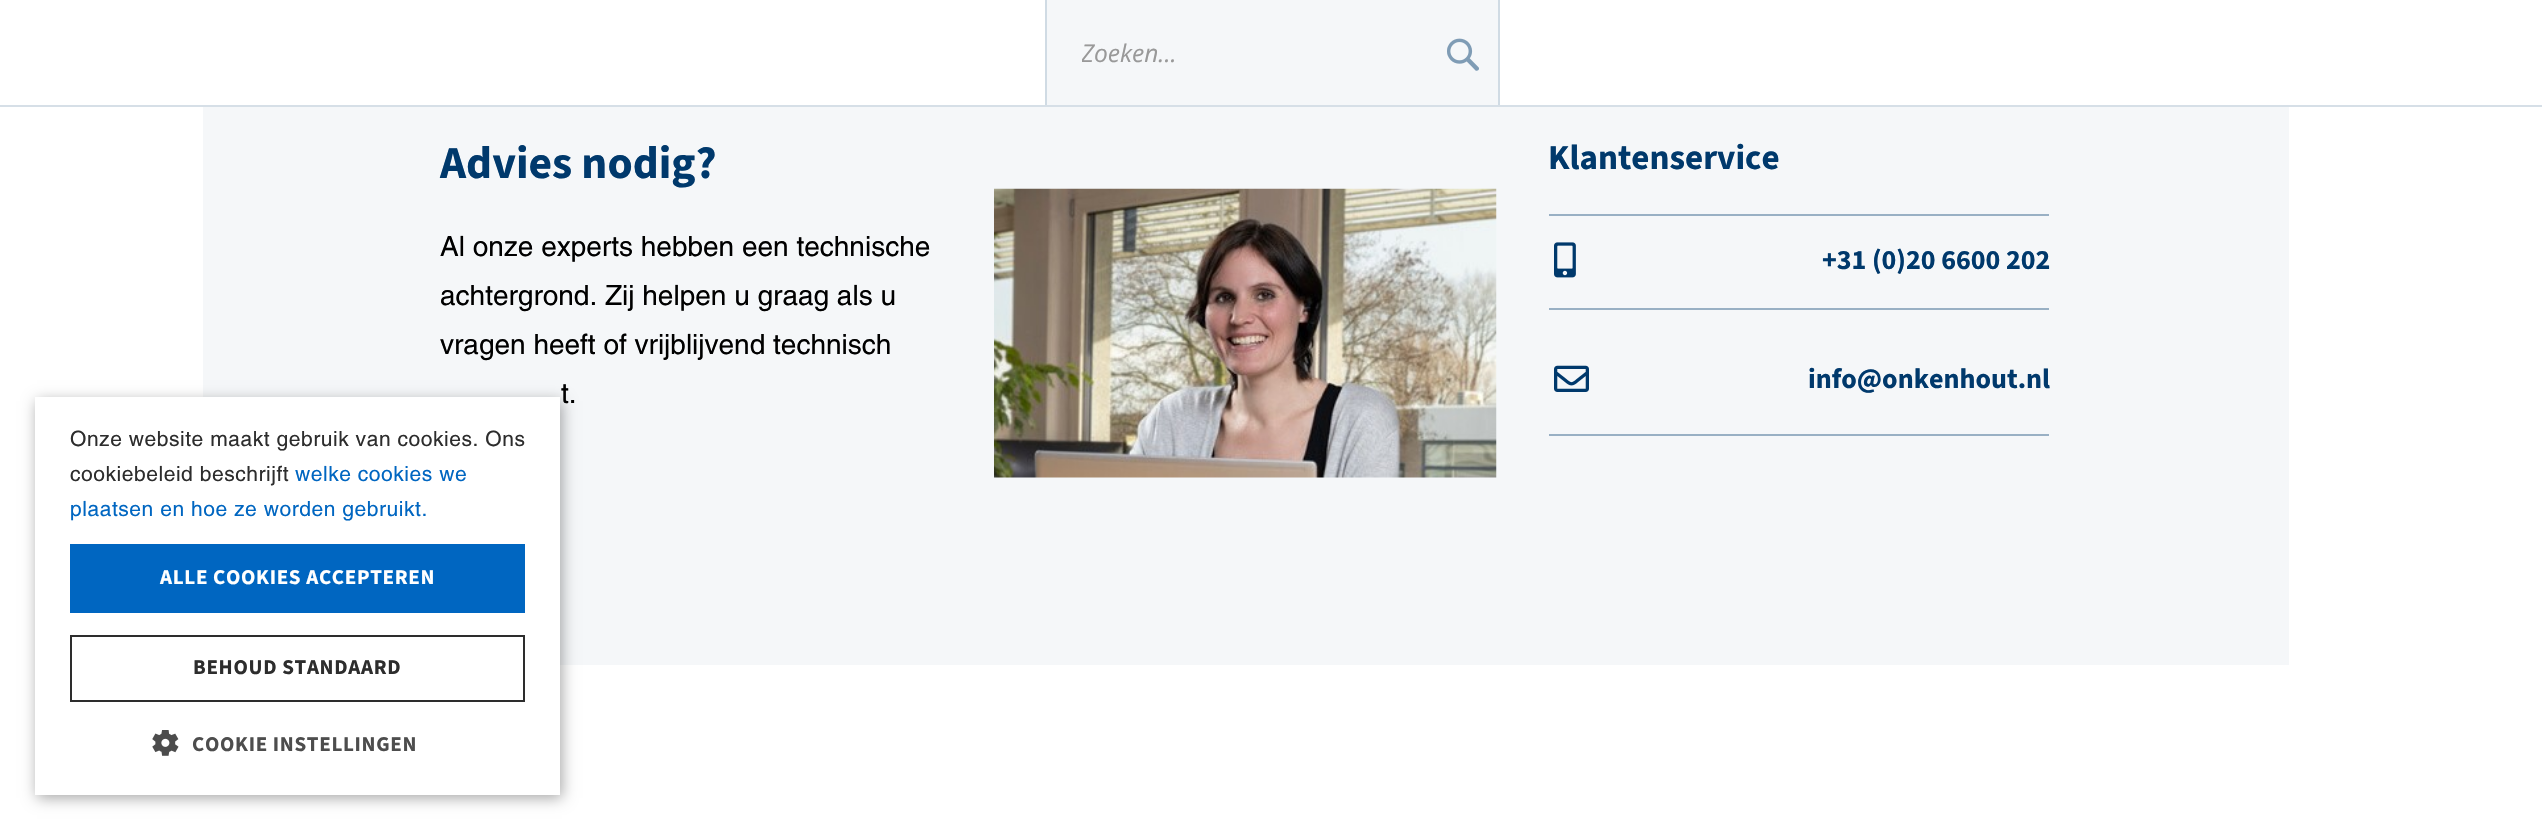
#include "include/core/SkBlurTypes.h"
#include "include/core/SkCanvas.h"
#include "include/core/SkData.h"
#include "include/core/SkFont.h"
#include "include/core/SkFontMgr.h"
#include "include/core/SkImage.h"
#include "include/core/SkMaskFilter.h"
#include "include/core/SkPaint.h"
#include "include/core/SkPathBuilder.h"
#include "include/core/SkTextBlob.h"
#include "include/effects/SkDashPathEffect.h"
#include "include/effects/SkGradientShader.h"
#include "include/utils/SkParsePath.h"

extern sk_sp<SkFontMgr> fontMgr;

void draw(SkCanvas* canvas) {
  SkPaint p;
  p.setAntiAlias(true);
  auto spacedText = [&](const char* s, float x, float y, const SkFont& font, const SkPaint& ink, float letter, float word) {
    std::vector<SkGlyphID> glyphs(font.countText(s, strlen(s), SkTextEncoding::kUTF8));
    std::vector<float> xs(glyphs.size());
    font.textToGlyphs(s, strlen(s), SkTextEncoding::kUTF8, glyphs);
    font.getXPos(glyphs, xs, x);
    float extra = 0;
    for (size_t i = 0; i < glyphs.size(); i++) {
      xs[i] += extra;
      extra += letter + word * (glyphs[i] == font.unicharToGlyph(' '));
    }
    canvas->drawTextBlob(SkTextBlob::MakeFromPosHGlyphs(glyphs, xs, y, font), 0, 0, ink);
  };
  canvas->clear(SK_ColorWHITE);
  p.setColor(SkColorSetRGB(214, 223, 231));
  canvas->drawRect(SkRect::MakeLTRB(0, 105, 2542, 107), p);
  p.setColor(SkColorSetRGB(245, 247, 249));
  canvas->drawRect(SkRect::MakeLTRB(1047, 0, 1498, 105), p);
  p.setColor(SkColorSetRGB(208, 219, 228));
  canvas->drawRect(SkRect::MakeLTRB(1498, 0, 1500, 105), p);
  canvas->drawRect(SkRect::MakeLTRB(1045, 0, 1047, 105), p);
  canvas->drawImageRect(SkImages::DeferredFromEncodedData(SkData::MakeFromFileName("images/1.png")), SkRect::MakeLTRB(1447, 38, 1479, 71), SkSamplingOptions());
  p.setColor(SkColorSetRGB(245, 247, 249));
  canvas->drawRect(SkRect::MakeLTRB(203, 107, 2289, 665), p);
  canvas->drawImageRect(SkImages::DeferredFromEncodedData(SkData::MakeFromFileName("images/2.png")), SkRect::MakeLTRB(994, 188, 1497, 478), SkSamplingOptions());
  p.setColor(SkColorSetRGB(153, 176, 196));
  canvas->drawRect(SkRect::MakeLTRB(1549, 214, 2049, 216), p);
  canvas->drawRect(SkRect::MakeLTRB(1549, 308, 2049, 310), p);
  canvas->drawImageRect(SkImages::DeferredFromEncodedData(SkData::MakeFromFileName("images/3.png")), SkRect::MakeLTRB(1554, 242, 1576, 278), SkSamplingOptions());
  canvas->drawRect(SkRect::MakeLTRB(1549, 434, 2049, 436), p);
  canvas->drawImageRect(SkImages::DeferredFromEncodedData(SkData::MakeFromFileName("images/4.png")), SkRect::MakeLTRB(1554, 365, 1589, 392), SkSamplingOptions());
  p.setColor(SkColorSetARGB(89, 0, 0, 0));
  p.setMaskFilter(SkMaskFilter::MakeBlur(kNormal_SkBlurStyle, 7));
  canvas->drawRect(SkRect::MakeLTRB(37, 401, 562, 798), p);
  p.setMaskFilter(nullptr);
  p.setColor(SK_ColorWHITE);
  canvas->drawRect(SkRect::MakeLTRB(35, 397, 560, 795), p);
  p.setColor(SkColorSetRGB(0, 102, 193));
  canvas->drawRect(SkRect::MakeLTRB(70, 544, 525, 613), p);
  p.setStyle(SkPaint::kStroke_Style);
  p.setStrokeWidth(2);
  p.setColor(SkColorSetRGB(45, 45, 45));
  canvas->drawRect(SkRect::MakeLTRB(71, 636, 524, 701), p);
  canvas->drawImageRect(SkImages::DeferredFromEncodedData(SkData::MakeFromFileName("images/5.png")), SkRect::MakeLTRB(152, 730, 179, 756), SkSamplingOptions());
  canvas->save();
  canvas->clipRect(SkRect::MakeLTRB(1082, 37, 1463, 70));
  SkFont font1(fontMgr->matchFamilyStyle("Open Sans", SkFontStyle::Italic()), 24.5f);
  font1.setSubpixel(true);
  p.setStyle(SkPaint::kFill_Style);
  p.setColor(SkColorSetRGB(153, 153, 153));
  canvas->drawString("Zoeken...", 1081, 62, font1, p);
  canvas->restore();
  SkFont font2(fontMgr->matchFamilyStyle("Source Sans 3", SkFontStyle::Bold()), 45.5f);
  font2.setSubpixel(true);
  p.setColor(SkColorSetRGB(0, 57, 108));
  canvas->drawString("Advies nodig?", 440, 178, font2, p);
  SkFont font3(fontMgr->matchFamilyStyle("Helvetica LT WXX", SkFontStyle::Normal()), 28);
  font3.setSubpixel(true);
  p.setColor(SK_ColorBLACK);
  canvas->drawString("Al onze experts hebben een technische", 440, 256, font3, p);
  canvas->drawString("achtergrond. Zij helpen u graag als u", 440, 305, font3, p);
  canvas->drawString("vragen heeft of vrijblijvend technisch", 440, 354, font3, p);
  canvas->drawString("t.", 561, 403, font3, p);
  SkFont font4(fontMgr->matchFamilyStyle("Source Sans 3", SkFontStyle::Bold()), 35);
  font4.setSubpixel(true);
  p.setColor(SkColorSetRGB(0, 57, 108));
  canvas->drawString("Klantenservice", 1548, 169, font4, p);
  SkFont font5(fontMgr->matchFamilyStyle("Source Sans 3", SkFontStyle::Bold()), 28);
  font5.setSubpixel(true);
  canvas->drawString("+31 (0)20 6600 202", 1822, 269, font5, p);
  canvas->drawString("info@onkenhout.nl", 1808, 388, font5, p);
  SkFont font6(fontMgr->matchFamilyStyle("Helvetica LT WXX", SkFontStyle::Normal()), 21);
  font6.setSubpixel(true);
  p.setColor(SkColorSetRGB(45, 45, 45));
  spacedText("Onze website maakt gebruik van cookies. Ons", 70, 446, font6, p, 0.55f, 0);
  spacedText("cookiebeleid beschrijft", 70, 481, font6, p, 0.55f, 0);
  p.setColor(SkColorSetRGB(0, 102, 193));
  spacedText("welke cookies we", 295, 481, font6, p, 0.55f, 0);
  spacedText("plaatsen en hoe ze worden gebruikt.", 70, 516, font6, p, 0.55f, 0);
  SkFont font7(fontMgr->matchFamilyStyle("Source Sans 3", SkFontStyle::Bold()), 21);
  font7.setSubpixel(true);
  p.setColor(SK_ColorWHITE);
  spacedText("ALLE COOKIES ACCEPTEREN", 160, 584, font7, p, 0.7f, 0);
  p.setColor(SkColorSetRGB(45, 45, 45));
  spacedText("BEHOUD STANDAARD", 193, 674, font7, p, 0.7f, 0);
  p.setColor(SkColorSetRGB(77, 77, 77));
  spacedText("COOKIE INSTELLINGEN", 192, 751, font7, p, 0.7f, 0);
}
